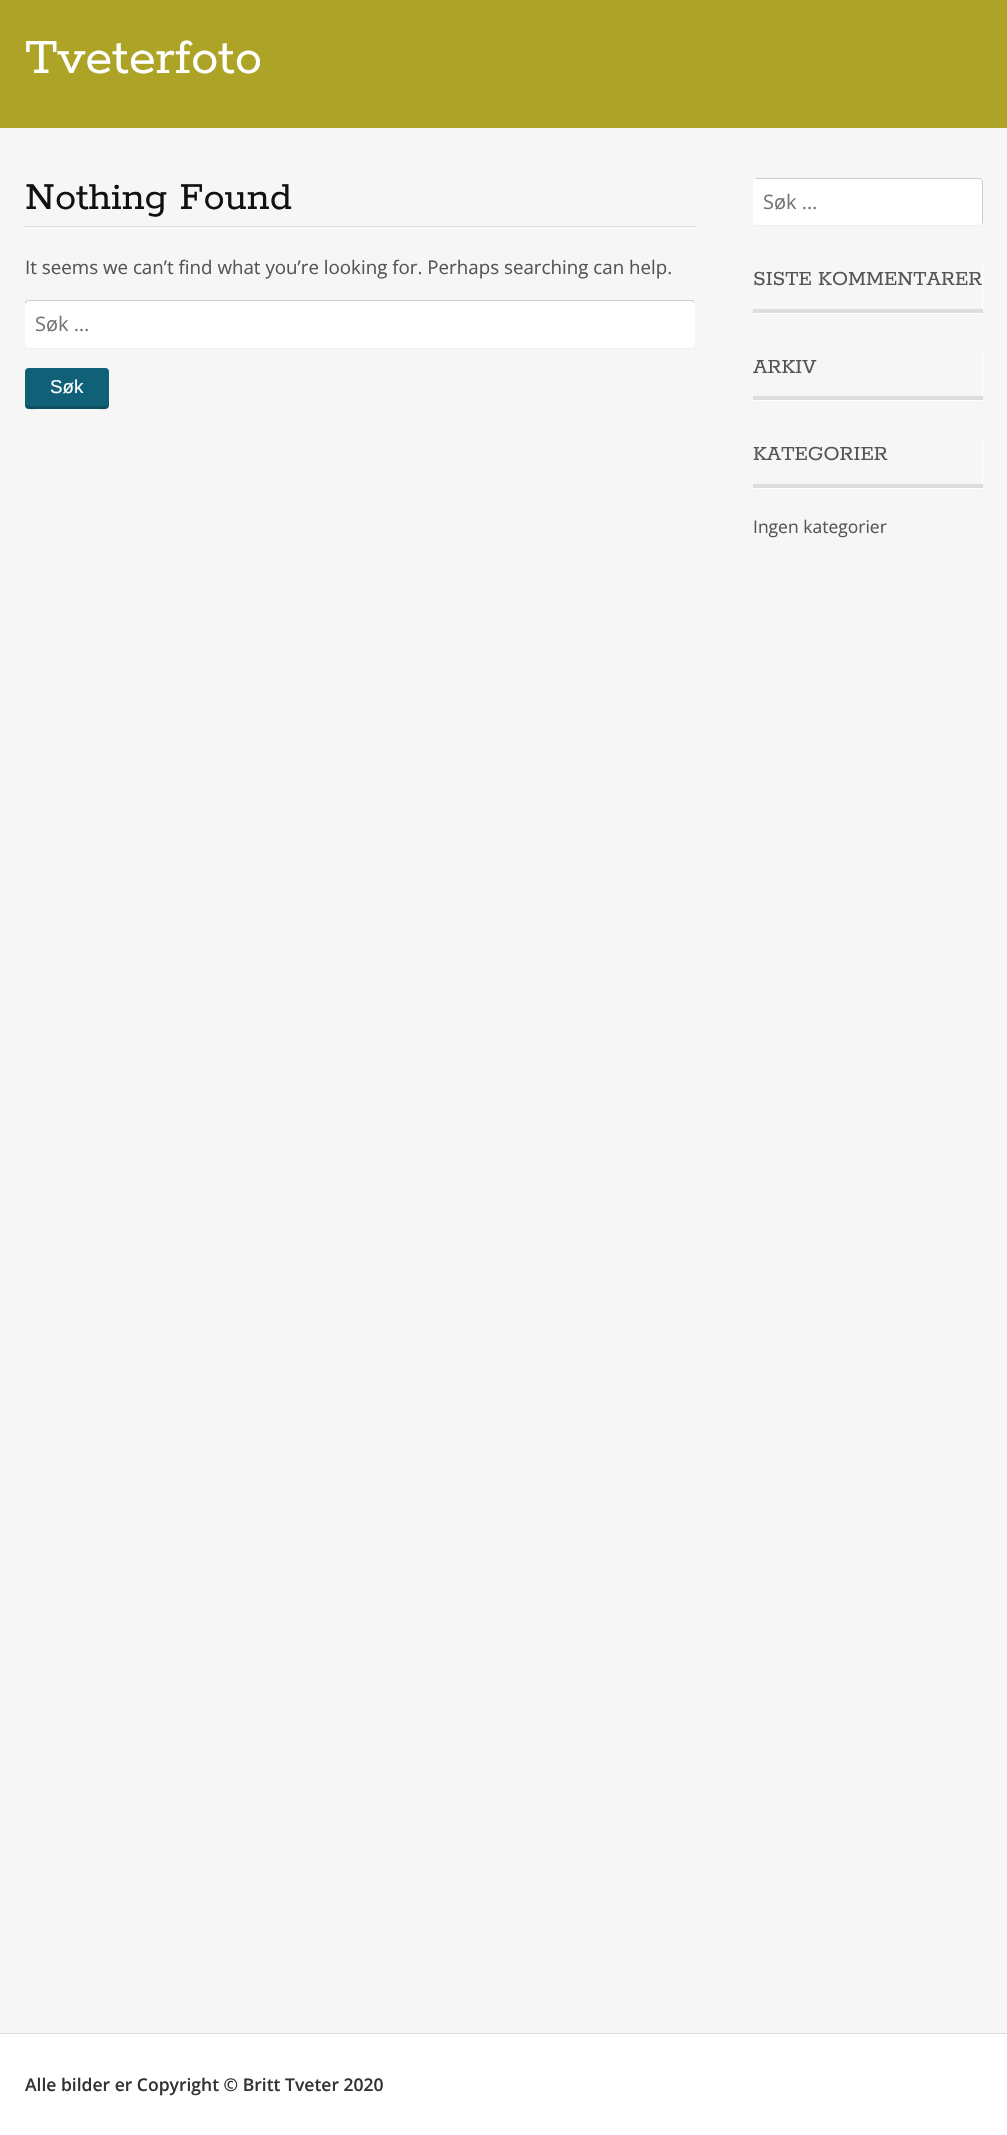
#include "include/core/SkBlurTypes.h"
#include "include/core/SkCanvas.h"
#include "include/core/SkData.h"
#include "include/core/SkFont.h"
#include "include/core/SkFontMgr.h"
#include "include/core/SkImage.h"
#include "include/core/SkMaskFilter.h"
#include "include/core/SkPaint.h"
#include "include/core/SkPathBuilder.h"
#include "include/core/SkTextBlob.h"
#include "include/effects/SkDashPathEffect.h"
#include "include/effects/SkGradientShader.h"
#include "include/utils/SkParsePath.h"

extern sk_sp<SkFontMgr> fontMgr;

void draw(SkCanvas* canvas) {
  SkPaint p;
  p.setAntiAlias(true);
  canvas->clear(SkColorSetRGB(246, 246, 246));
  p.setColor(SkColorSetRGB(173, 164, 39));
  canvas->drawRect(SkRect::MakeLTRB(0, 0, 1007, 128), p);
  p.setColor(SK_ColorWHITE);
  canvas->drawRect(SkRect::MakeLTRB(25, 228, 695, 229), p);
  p.setColor(SkColorSetRGB(221, 221, 221));
  canvas->drawRect(SkRect::MakeLTRB(25, 226, 695, 227), p);
  p.setColor(SkColorSetRGB(240, 240, 240));
  canvas->drawPath(SkPathBuilder().moveTo(25, 344).lineTo(25, 345).cubicTo(25, 347, 27, 349, 29, 349).lineTo(691, 349).cubicTo(693, 349, 695, 347, 695, 345).lineTo(695, 344).cubicTo(695, 346, 693, 348, 691, 348).lineTo(29, 348).cubicTo(27, 348, 25, 346, 25, 344).close().detach(), p);
  p.setColor(SK_ColorWHITE);
  canvas->drawRoundRect(SkRect::MakeLTRB(25, 300, 695, 348), 4, 4, p);
  p.setColor(SkColorSetARGB(51, 0, 0, 0));
  canvas->drawPath(SkPathBuilder().moveTo(29, 301).lineTo(691, 301).cubicTo(693, 301, 695, 303, 695, 305).cubicTo(695, 302, 694, 300, 691, 300).lineTo(29, 300).lineTo(26, 301).lineTo(25, 302).lineTo(25, 305).cubicTo(25, 303, 27, 301, 29, 301).close().detach(), p);
  p.setColor(SkColorSetRGB(16, 97, 119));
  canvas->drawRoundRect(SkRect::MakeLTRB(25, 368, 109, 409), 4, 4, p);
  p.setColor(SkColorSetARGB(51, 0, 0, 0));
  canvas->drawPath(SkPathBuilder().moveTo(25, 402).cubicTo(25, 412, 31, 409, 42, 409).lineTo(92, 409).cubicTo(103, 409, 109, 412, 109, 402).cubicTo(109, 405, 107, 406, 105, 406).lineTo(29, 406).cubicTo(27, 406, 25, 405, 25, 402).close().detach(), p);
  p.setColor(SkColorSetRGB(240, 240, 240));
  canvas->drawPath(SkPathBuilder().moveTo(753, 224).cubicTo(754, 225, 755, 226, 757, 226).lineTo(979, 226).cubicTo(981, 226, 983, 224, 983, 222).lineTo(983, 183).lineTo(982, 181).lineTo(982, 221).cubicTo(982, 223, 981, 225, 979, 225).lineTo(756, 225).cubicTo(755, 225, 754, 224, 753, 224).close().detach(), p);
  p.setColor(SK_ColorWHITE);
  canvas->drawRoundRect(SkRect::MakeLTRB(753, 178, 983, 225), 4, 4, p);
  p.setColor(SkColorSetARGB(51, 0, 0, 0));
  canvas->drawPath(SkPathBuilder().moveTo(756, 179).lineTo(979, 179).cubicTo(981, 179, 982, 180, 982, 182).lineTo(982, 224).cubicTo(983, 223, 983, 222, 983, 221).lineTo(983, 182).cubicTo(983, 180, 981, 178, 979, 178).lineTo(757, 178).cubicTo(756, 178, 755, 179, 754, 179).close().detach(), p);
  p.setColor(SK_ColorWHITE);
  canvas->drawPath(SkPathBuilder().moveTo(753, 312).lineTo(753, 314).lineTo(983, 314).lineTo(983, 264).lineTo(982, 264).lineTo(982, 312).close().detach(), p);
  p.setColor(SkColorSetRGB(221, 221, 221));
  canvas->drawRect(SkRect::MakeLTRB(753, 309, 983, 313), p);
  p.setColor(SK_ColorWHITE);
  canvas->drawPath(SkPathBuilder().moveTo(753, 400).lineTo(753, 401).lineTo(983, 401).lineTo(983, 351).lineTo(982, 351).lineTo(982, 400).close().detach(), p);
  p.setColor(SkColorSetRGB(221, 221, 221));
  canvas->drawRect(SkRect::MakeLTRB(753, 396, 983, 400), p);
  p.setColor(SK_ColorWHITE);
  canvas->drawPath(SkPathBuilder().moveTo(753, 488).lineTo(753, 489).lineTo(983, 489).lineTo(983, 439).lineTo(982, 439).lineTo(982, 488).close().detach(), p);
  p.setColor(SkColorSetRGB(221, 221, 221));
  canvas->drawRect(SkRect::MakeLTRB(753, 484, 983, 488), p);
  p.setColor(SK_ColorWHITE);
  canvas->drawRect(SkRect::MakeLTRB(0, 2034, 1007, 2135), p);
  p.setColor(SkColorSetRGB(221, 221, 221));
  canvas->drawRect(SkRect::MakeLTRB(0, 2033, 1007, 2034), p);
  SkFont font1(fontMgr->matchFamilyStyle("Rokkitt", SkFontStyle::Normal()), 55);
  font1.setSubpixel(true);
  p.setColor(SK_ColorWHITE);
  canvas->drawString("Tveterfoto", 25, 73, font1, p);
  SkFont font2(fontMgr->matchFamilyStyle("Rokkitt", SkFontStyle::Normal()), 42.5f);
  font2.setSubpixel(true);
  p.setColor(SkColorSetRGB(17, 17, 17));
  canvas->drawString("Nothing Found", 25, 209, font2, p);
  SkFont font3(fontMgr->matchFamilyStyle("Open Sans", SkFontStyle::Normal()), 18.75f);
  font3.setSubpixel(true);
  p.setColor(SkColorSetRGB(85, 85, 85));
  canvas->drawString("It seems we can’t find what you’re looking for. Perhaps searching can help.", 25, 274, font3, p);
  SkFont font4(fontMgr->matchFamilyStyle("Open Sans", SkFontStyle::Normal()), 20);
  font4.setSubpixel(true);
  p.setColor(SkColorSetRGB(117, 117, 117));
  canvas->drawString("Søk …", 35, 331, font4, p);
  SkFont font5(fontMgr->matchFamilyStyle("Liberation Sans", SkFontStyle::Normal()), 18.75f);
  font5.setSubpixel(true);
  p.setColor(SK_ColorWHITE);
  canvas->drawString("Søk", 50, 393, font5, p);
  p.setColor(SkColorSetRGB(117, 117, 117));
  canvas->drawString("Søk …", 763, 209, font4, p);
  SkFont font6(fontMgr->matchFamilyStyle("Rokkitt", SkFontStyle::Normal()), 22.5f);
  font6.setSubpixel(true);
  p.setColor(SkColorSetRGB(85, 85, 85));
  canvas->drawString("SISTE KOMMENTARER", 753, 285, font6, p);
  canvas->drawString("ARKIV", 753, 373, font6, p);
  canvas->drawString("KATEGORIER", 753, 460, font6, p);
  SkFont font7(fontMgr->matchFamilyStyle("Open Sans", SkFontStyle::Normal()), 17.5f);
  font7.setSubpixel(true);
  canvas->drawString("Ingen kategorier", 753, 533, font7, p);
  SkFont font8(fontMgr->matchFamilyStyle("Open Sans", SkFontStyle(600, SkFontStyle::kNormal_Width, SkFontStyle::kUpright_Slant)), 17.5f);
  font8.setSubpixel(true);
  p.setColor(SkColorSetRGB(51, 51, 51));
  canvas->drawString("Alle bilder er Copyright © Britt Tveter 2020", 25, 2091, font8, p);
}
